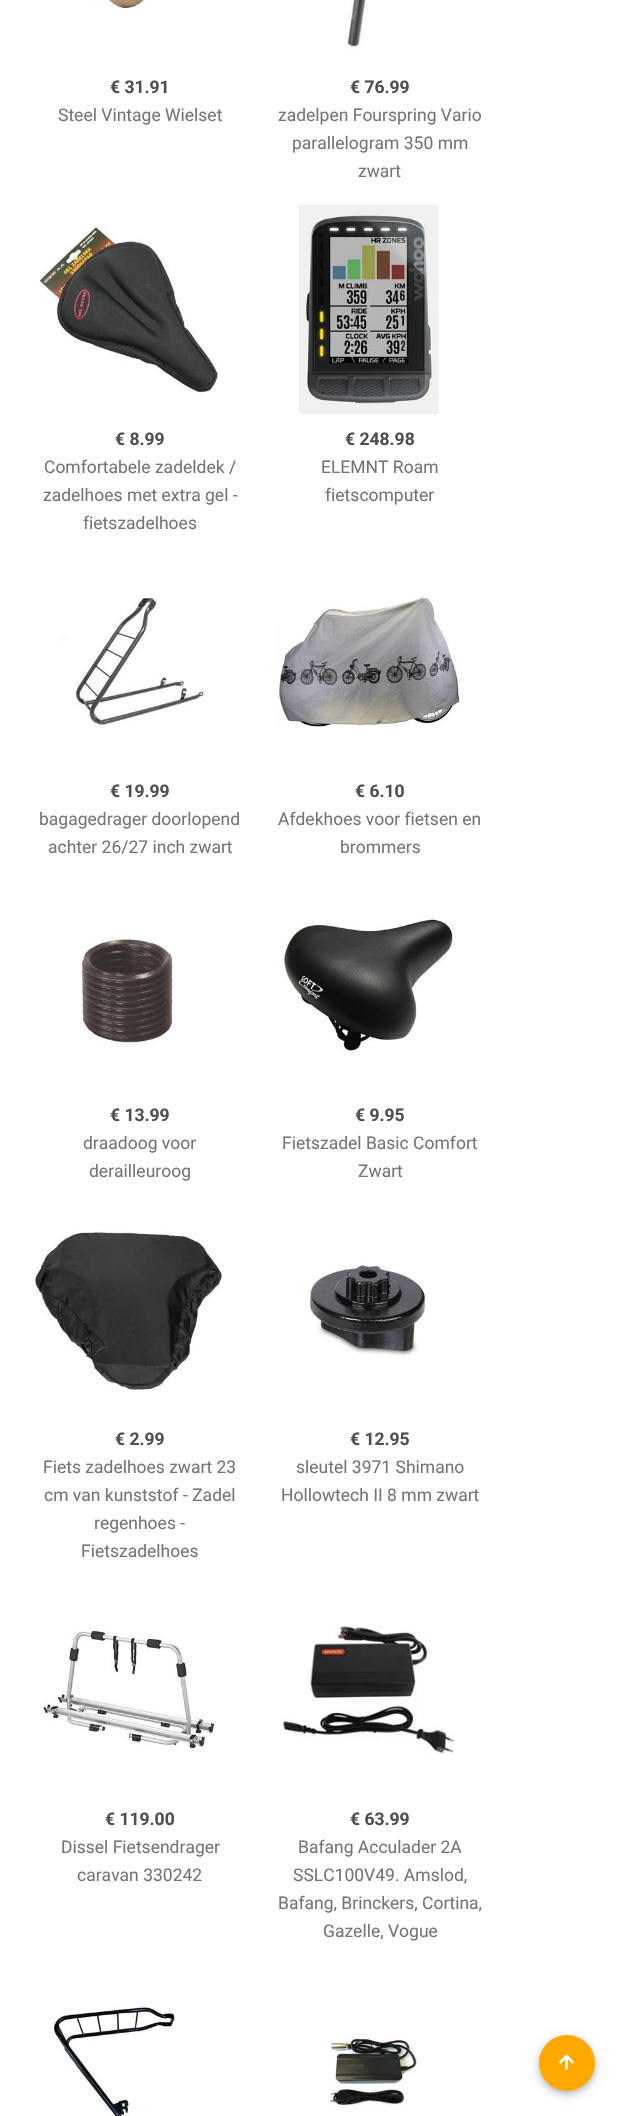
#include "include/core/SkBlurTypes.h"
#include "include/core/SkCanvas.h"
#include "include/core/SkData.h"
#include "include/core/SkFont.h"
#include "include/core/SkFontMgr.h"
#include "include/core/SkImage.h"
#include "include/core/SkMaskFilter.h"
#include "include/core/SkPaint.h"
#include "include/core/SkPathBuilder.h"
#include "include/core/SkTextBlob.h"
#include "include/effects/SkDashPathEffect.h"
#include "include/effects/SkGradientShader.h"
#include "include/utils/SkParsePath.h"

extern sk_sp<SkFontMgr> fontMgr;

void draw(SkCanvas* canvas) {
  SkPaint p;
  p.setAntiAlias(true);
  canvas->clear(SK_ColorWHITE);
  canvas->drawImageRect(SkImages::DeferredFromEncodedData(SkData::MakeFromFileName("images/1.png")), SkRect::MakeLTRB(106, 0, 145, 10), SkSamplingOptions());
  canvas->drawImageRect(SkImages::DeferredFromEncodedData(SkData::MakeFromFileName("images/2.png")), SkRect::MakeLTRB(345, 0, 367, 50), SkSamplingOptions());
  canvas->drawImageRect(SkImages::DeferredFromEncodedData(SkData::MakeFromFileName("images/3.png")), SkRect::MakeLTRB(39, 226, 219, 396), SkSamplingOptions());
  canvas->drawImageRect(SkImages::DeferredFromEncodedData(SkData::MakeFromFileName("images/4.png")), SkRect::MakeLTRB(298, 205, 439, 414), SkSamplingOptions());
  canvas->drawImageRect(SkImages::DeferredFromEncodedData(SkData::MakeFromFileName("images/5.png")), SkRect::MakeLTRB(61, 596, 205, 726), SkSamplingOptions());
  canvas->drawImageRect(SkImages::DeferredFromEncodedData(SkData::MakeFromFileName("images/6.png")), SkRect::MakeLTRB(275, 595, 460, 728), SkSamplingOptions());
  canvas->drawImageRect(SkImages::DeferredFromEncodedData(SkData::MakeFromFileName("images/7.png")), SkRect::MakeLTRB(80, 938, 175, 1043), SkSamplingOptions());
  canvas->drawImageRect(SkImages::DeferredFromEncodedData(SkData::MakeFromFileName("images/8.png")), SkRect::MakeLTRB(281, 917, 454, 1051), SkSamplingOptions());
  canvas->drawImageRect(SkImages::DeferredFromEncodedData(SkData::MakeFromFileName("images/9.png")), SkRect::MakeLTRB(35, 1231, 222, 1391), SkSamplingOptions());
  canvas->drawImageRect(SkImages::DeferredFromEncodedData(SkData::MakeFromFileName("images/10.png")), SkRect::MakeLTRB(306, 1262, 426, 1356), SkSamplingOptions());
  canvas->drawImageRect(SkImages::DeferredFromEncodedData(SkData::MakeFromFileName("images/11.png")), SkRect::MakeLTRB(40, 1630, 215, 1751), SkSamplingOptions());
  canvas->drawImageRect(SkImages::DeferredFromEncodedData(SkData::MakeFromFileName("images/12.png")), SkRect::MakeLTRB(283, 1625, 455, 1754), SkSamplingOptions());
  canvas->drawImageRect(SkImages::DeferredFromEncodedData(SkData::MakeFromFileName("images/13.png")), SkRect::MakeLTRB(50, 2006, 175, 2116), SkSamplingOptions());
  canvas->drawImageRect(SkImages::DeferredFromEncodedData(SkData::MakeFromFileName("images/14.png")), SkRect::MakeLTRB(328, 2036, 420, 2106), SkSamplingOptions());
  p.setColor(SkColorSetARGB(26, 0, 0, 0));
  p.setMaskFilter(SkMaskFilter::MakeBlur(kNormal_SkBlurStyle, 6));
  canvas->drawRoundRect(SkRect::MakeLTRB(539, 2038, 595, 2094), 28, 28, p);
  p.setMaskFilter(nullptr);
  p.setColor(SkColorSetARGB(51, 0, 0, 0));
  p.setMaskFilter(SkMaskFilter::MakeBlur(kNormal_SkBlurStyle, 3));
  canvas->drawRoundRect(SkRect::MakeLTRB(539, 2038, 595, 2094), 28, 28, p);
  p.setMaskFilter(nullptr);
  p.setColor(SkColorSetRGB(255, 169, 0));
  canvas->drawCircle(567, 2063, 28, p);
  canvas->drawImageRect(SkImages::DeferredFromEncodedData(SkData::MakeFromFileName("images/15.png")), SkRect::MakeLTRB(559, 2054, 574, 2070), SkSamplingOptions());
  SkFont font1(fontMgr->matchFamilyStyle("Roboto", SkFontStyle::Bold()), 17.5f);
  font1.setSubpixel(true);
  p.setColor(SkColorSetRGB(79, 79, 79));
  canvas->drawString("€ 31.91", 110, 93, font1, p);
  SkFont font2(fontMgr->matchFamilyStyle("Roboto", SkFontStyle::Normal()), 17.5f);
  font2.setSubpixel(true);
  p.setColor(SkColorSetRGB(117, 117, 117));
  canvas->drawString("Steel Vintage Wielset", 58, 121, font2, p);
  p.setColor(SkColorSetRGB(79, 79, 79));
  canvas->drawString("€ 76.99", 350, 93, font1, p);
  p.setColor(SkColorSetRGB(117, 117, 117));
  canvas->drawString("zadelpen Fourspring Vario", 278, 121, font2, p);
  canvas->drawString("parallelogram 350 mm", 292, 149, font2, p);
  canvas->drawString("zwart", 358, 177, font2, p);
  p.setColor(SkColorSetRGB(79, 79, 79));
  canvas->drawString("€ 8.99", 115, 445, font1, p);
  p.setColor(SkColorSetRGB(117, 117, 117));
  canvas->drawString("Comfortabele zadeldek /", 44, 473, font2, p);
  canvas->drawString("zadelhoes met extra gel -", 43, 501, font2, p);
  canvas->drawString("fietszadelhoes", 83, 529, font2, p);
  p.setColor(SkColorSetRGB(79, 79, 79));
  canvas->drawString("€ 248.98", 345, 445, font1, p);
  p.setColor(SkColorSetRGB(117, 117, 117));
  canvas->drawString("ELEMNT Roam", 321, 473, font2, p);
  canvas->drawString("fietscomputer", 325, 501, font2, p);
  p.setColor(SkColorSetRGB(79, 79, 79));
  canvas->drawString("€ 19.99", 110, 797, font1, p);
  p.setColor(SkColorSetRGB(117, 117, 117));
  canvas->drawString("bagagedrager doorlopend", 39, 825, font2, p);
  canvas->drawString("achter 26/27 inch zwart", 48, 853, font2, p);
  p.setColor(SkColorSetRGB(79, 79, 79));
  canvas->drawString("€ 6.10", 355, 797, font1, p);
  p.setColor(SkColorSetRGB(117, 117, 117));
  canvas->drawString("Afdekhoes voor fietsen en", 278, 825, font2, p);
  canvas->drawString("brommers", 340, 853, font2, p);
  p.setColor(SkColorSetRGB(79, 79, 79));
  canvas->drawString("€ 13.99", 110, 1121, font1, p);
  p.setColor(SkColorSetRGB(117, 117, 117));
  canvas->drawString("draadoog voor", 83, 1149, font2, p);
  canvas->drawString("derailleuroog", 89, 1177, font2, p);
  p.setColor(SkColorSetRGB(79, 79, 79));
  canvas->drawString("€ 9.95", 355, 1121, font1, p);
  p.setColor(SkColorSetRGB(117, 117, 117));
  canvas->drawString("Fietszadel Basic Comfort", 282, 1149, font2, p);
  canvas->drawString("Zwart", 358, 1177, font2, p);
  p.setColor(SkColorSetRGB(79, 79, 79));
  canvas->drawString("€ 2.99", 115, 1445, font1, p);
  p.setColor(SkColorSetRGB(117, 117, 117));
  canvas->drawString("Fiets zadelhoes zwart 23", 43, 1473, font2, p);
  canvas->drawString("cm van kunststof - Zadel", 44, 1501, font2, p);
  canvas->drawString("regenhoes -", 94, 1529, font2, p);
  canvas->drawString("Fietszadelhoes", 81, 1557, font2, p);
  p.setColor(SkColorSetRGB(79, 79, 79));
  canvas->drawString("€ 12.95", 350, 1445, font1, p);
  p.setColor(SkColorSetRGB(117, 117, 117));
  canvas->drawString("sleutel 3971 Shimano", 296, 1473, font2, p);
  canvas->drawString("Hollowtech II 8 mm zwart", 281, 1501, font2, p);
  p.setColor(SkColorSetRGB(79, 79, 79));
  canvas->drawString("€ 119.00", 105, 1825, font1, p);
  p.setColor(SkColorSetRGB(117, 117, 117));
  canvas->drawString("Dissel Fietsendrager", 61, 1853, font2, p);
  canvas->drawString("caravan 330242", 77, 1881, font2, p);
  p.setColor(SkColorSetRGB(79, 79, 79));
  canvas->drawString("€ 63.99", 350, 1825, font1, p);
  p.setColor(SkColorSetRGB(117, 117, 117));
  canvas->drawString("Bafang Acculader 2A", 298, 1853, font2, p);
  canvas->drawString("SSLC100V49. Amslod,", 293, 1881, font2, p);
  canvas->drawString("Bafang, Brinckers, Cortina,", 278, 1909, font2, p);
  canvas->drawString("Gazelle, Vogue", 323, 1937, font2, p);
}
